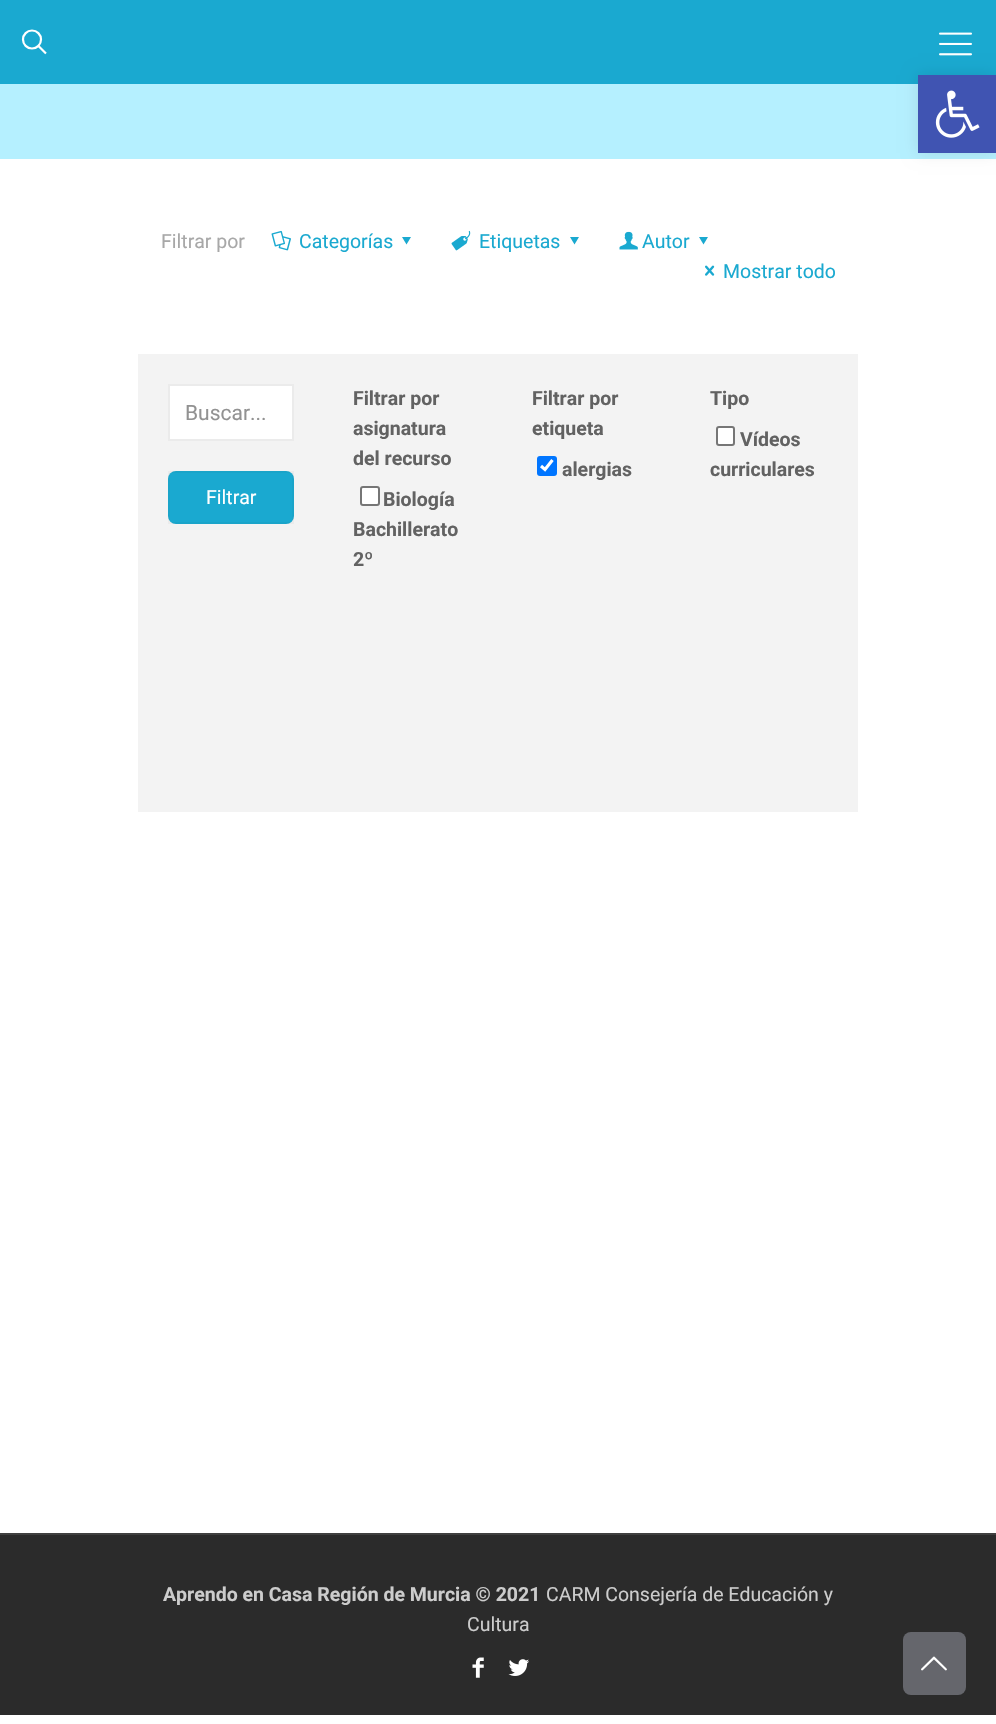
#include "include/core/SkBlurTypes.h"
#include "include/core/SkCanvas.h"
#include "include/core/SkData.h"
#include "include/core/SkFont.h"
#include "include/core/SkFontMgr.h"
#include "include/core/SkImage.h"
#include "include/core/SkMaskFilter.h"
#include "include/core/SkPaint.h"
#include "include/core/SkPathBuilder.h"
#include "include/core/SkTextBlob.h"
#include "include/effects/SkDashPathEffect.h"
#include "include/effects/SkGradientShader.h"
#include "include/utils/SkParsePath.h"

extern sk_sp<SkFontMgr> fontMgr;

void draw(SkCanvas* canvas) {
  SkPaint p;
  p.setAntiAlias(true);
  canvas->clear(SK_ColorWHITE);
  p.setColor(SkColorSetRGB(26, 169, 208));
  canvas->drawRect(SkRect::MakeLTRB(0, 0, 996, 84), p);
  canvas->drawImageRect(SkImages::DeferredFromEncodedData(SkData::MakeFromFileName("images/2.png")), SkRect::MakeLTRB(939, 32, 972, 56), SkSamplingOptions());
  p.setColor(SkColorSetRGB(181, 240, 255));
  canvas->drawRect(SkRect::MakeLTRB(0, 84, 996, 159), p);
  p.setColor(SkColorSetARGB(26, 0, 0, 0));
  p.setMaskFilter(SkMaskFilter::MakeBlur(kNormal_SkBlurStyle, 7.5f));
  canvas->drawRect(SkRect::MakeLTRB(918, 75, 996, 153), p);
  p.setMaskFilter(nullptr);
  p.setColor(SkColorSetRGB(64, 84, 178));
  canvas->drawRect(SkRect::MakeLTRB(918, 75, 996, 153), p);
  canvas->drawImageRect(SkImages::DeferredFromEncodedData(SkData::MakeFromFileName("images/1.png")), SkRect::MakeLTRB(935, 90, 980, 138), SkSamplingOptions());
  p.setStyle(SkPaint::kStroke_Style);
  p.setStrokeWidth(2.2f);
  p.setColor(SK_ColorWHITE);
  canvas->drawCircle(32, 39.5f, 9, p);
  canvas->drawPath(SkPathBuilder().moveTo(38.5f, 46).lineTo(46, 53.5f).detach(), p);
  canvas->drawImageRect(SkImages::DeferredFromEncodedData(SkData::MakeFromFileName("images/3.png")), SkRect::MakeLTRB(271, 230, 291, 251), SkSamplingOptions());
  p.setStyle(SkPaint::kFill_Style);
  p.setColor(SkColorSetRGB(26, 169, 208));
  canvas->drawPath(SkPathBuilder().moveTo(411, 237).lineTo(406.5f, 244.5f).lineTo(402, 237).close().detach(), p);
  canvas->drawImageRect(SkImages::DeferredFromEncodedData(SkData::MakeFromFileName("images/4.png")), SkRect::MakeLTRB(451, 230, 471, 251), SkSamplingOptions());
  canvas->drawPath(SkPathBuilder().moveTo(579, 237).lineTo(574.5f, 244.5f).lineTo(570, 237).close().detach(), p);
  canvas->drawImageRect(SkImages::DeferredFromEncodedData(SkData::MakeFromFileName("images/5.png")), SkRect::MakeLTRB(619, 231, 638, 250), SkSamplingOptions());
  canvas->drawPath(SkPathBuilder().moveTo(708, 237).lineTo(703.5f, 244.5f).lineTo(699, 237).close().detach(), p);
  canvas->drawImageRect(SkImages::DeferredFromEncodedData(SkData::MakeFromFileName("images/6.png")), SkRect::MakeLTRB(705, 265, 715, 276), SkSamplingOptions());
  p.setColor(SkColorSetRGB(243, 243, 243));
  canvas->drawRect(SkRect::MakeLTRB(138, 354, 858, 812), p);
  p.setColor(SK_ColorWHITE);
  canvas->drawRect(SkRect::MakeLTRB(169, 385, 293, 440), p);
  p.setStyle(SkPaint::kStroke_Style);
  p.setStrokeWidth(2);
  p.setColor(SkColorSetRGB(235, 235, 235));
  canvas->drawRect(SkRect::MakeLTRB(169, 385, 293, 440), p);
  p.setStyle(SkPaint::kFill_Style);
  p.setColor(SkColorSetRGB(26, 169, 208));
  canvas->drawRoundRect(SkRect::MakeLTRB(168, 471, 294, 524), 8, 8, p);
  p.setStyle(SkPaint::kStroke_Style);
  p.setColor(SkColorSetARGB(8, 0, 0, 0));
  canvas->drawRect(SkRect::MakeLTRB(169, 472, 293, 523), p);
  p.setStyle(SkPaint::kFill_Style);
  p.setColor(SK_ColorWHITE);
  canvas->drawRoundRect(SkRect::MakeLTRB(361, 487, 379, 505), 2, 2, p);
  p.setStyle(SkPaint::kStroke_Style);
  p.setColor(SkColorSetRGB(118, 118, 118));
  canvas->drawRoundRect(SkRect::MakeLTRB(361, 487, 379, 505), 2, 2, p);
  p.setStyle(SkPaint::kFill_Style);
  p.setColor(SkColorSetRGB(0, 117, 255));
  canvas->drawRoundRect(SkRect::MakeLTRB(537, 456, 557, 476), 3, 3, p);
  p.setStyle(SkPaint::kStroke_Style);
  p.setStrokeWidth(3.1f);
  p.setColor(SK_ColorWHITE);
  canvas->drawPath(SkPathBuilder().moveTo(541, 466).lineTo(545, 469.5f).lineTo(552.5f, 460).detach(), p);
  p.setStyle(SkPaint::kFill_Style);
  canvas->drawRoundRect(SkRect::MakeLTRB(717, 427, 734, 445), 2, 2, p);
  p.setStyle(SkPaint::kStroke_Style);
  p.setStrokeWidth(2);
  p.setColor(SkColorSetRGB(118, 118, 118));
  canvas->drawRoundRect(SkRect::MakeLTRB(717, 427, 734, 445), 2, 2, p);
  p.setStyle(SkPaint::kFill_Style);
  p.setColor(SkColorSetRGB(43, 43, 43));
  canvas->drawRect(SkRect::MakeLTRB(0, 1535, 996, 1715), p);
  p.setColor(SkColorSetRGB(64, 64, 64));
  canvas->drawRect(SkRect::MakeLTRB(0, 1533, 996, 1535), p);
  canvas->drawImageRect(SkImages::DeferredFromEncodedData(SkData::MakeFromFileName("images/7.png")), SkRect::MakeLTRB(472, 1657, 484, 1678), SkSamplingOptions());
  canvas->drawImageRect(SkImages::DeferredFromEncodedData(SkData::MakeFromFileName("images/8.png")), SkRect::MakeLTRB(508, 1659, 529, 1676), SkSamplingOptions());
  p.setColor(SkColorSetRGB(101, 102, 108));
  canvas->drawRoundRect(SkRect::MakeLTRB(903, 1632, 966, 1695), 8, 8, p);
  canvas->drawImageRect(SkImages::DeferredFromEncodedData(SkData::MakeFromFileName("images/9.png")), SkRect::MakeLTRB(921, 1656, 947, 1671), SkSamplingOptions());
  SkFont font1(fontMgr->matchFamilyStyle("Roboto", SkFontStyle::Normal()), 19.5f);
  font1.setSubpixel(true);
  p.setColor(SkColorSetRGB(168, 168, 168));
  canvas->drawString("Filtrar por", 161, 248, font1, p);
  p.setColor(SkColorSetRGB(26, 169, 208));
  canvas->drawString("Categorías", 299, 248, font1, p);
  canvas->drawString("Etiquetas", 479, 248, font1, p);
  canvas->drawString("Autor", 642, 248, font1, p);
  canvas->drawString("Mostrar todo", 723, 278, font1, p);
  SkFont font2(fontMgr->matchFamilyStyle("Roboto", SkFontStyle::Normal()), 21);
  font2.setSubpixel(true);
  p.setColor(SkColorSetRGB(146, 146, 146));
  canvas->drawString("Buscar...", 185, 420, font2, p);
  p.setColor(SK_ColorWHITE);
  canvas->drawString("Filtrar", 206, 504, font1, p);
  SkFont font3(fontMgr->matchFamilyStyle("Roboto", SkFontStyle::Bold()), 19.5f);
  font3.setSubpixel(true);
  p.setColor(SkColorSetRGB(98, 98, 98));
  canvas->drawString("Filtrar por", 353, 405, font3, p);
  canvas->drawString("asignatura", 353, 435, font3, p);
  canvas->drawString("del recurso", 353, 465, font3, p);
  canvas->drawString("Biología", 383, 506, font3, p);
  canvas->drawString("Bachillerato", 353, 536, font3, p);
  canvas->drawString("2º", 353, 566, font3, p);
  canvas->drawString("Filtrar por", 532, 405, font3, p);
  canvas->drawString("etiqueta", 532, 435, font3, p);
  canvas->drawString("alergias", 562, 476, font3, p);
  canvas->drawString("Tipo", 710, 405, font3, p);
  canvas->drawString("Vídeos", 740, 446, font3, p);
  canvas->drawString("curriculares", 710, 476, font3, p);
  p.setColor(SkColorSetRGB(204, 204, 204));
  canvas->drawString("Aprendo en Casa Región de Murcia © 2021", 163, 1601, font3, p);
  canvas->drawString("CARM Consejería de Educación y", 546, 1601, font1, p);
  canvas->drawString("Cultura", 467, 1631, font1, p);
}
